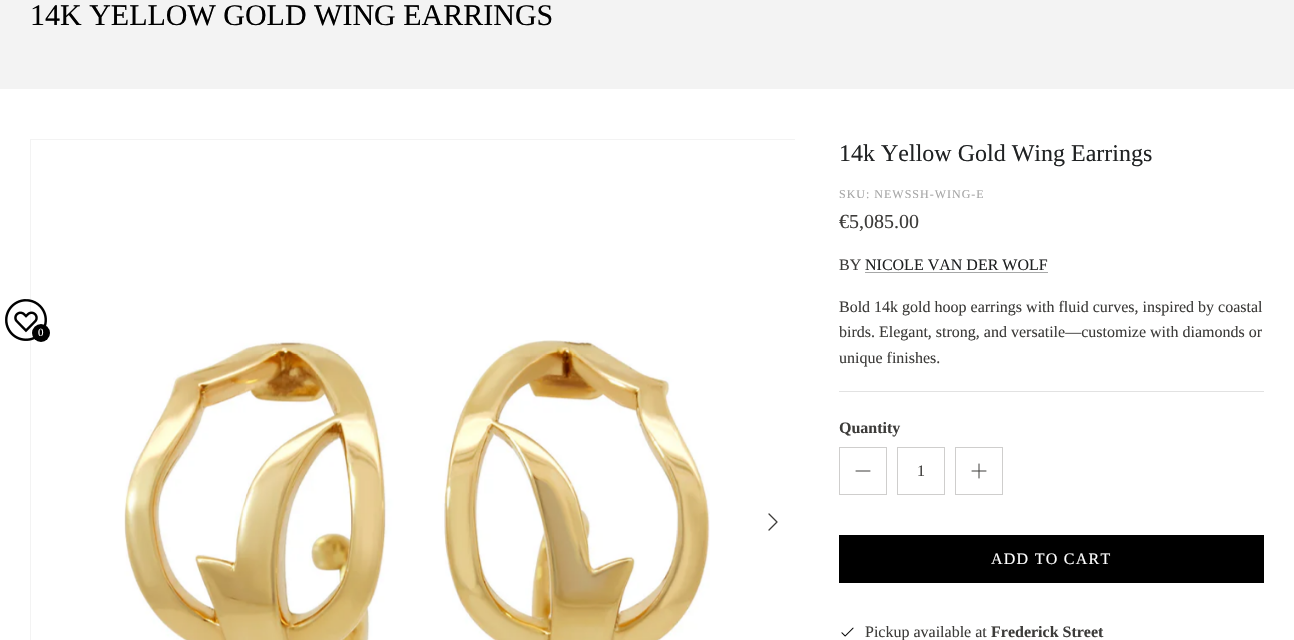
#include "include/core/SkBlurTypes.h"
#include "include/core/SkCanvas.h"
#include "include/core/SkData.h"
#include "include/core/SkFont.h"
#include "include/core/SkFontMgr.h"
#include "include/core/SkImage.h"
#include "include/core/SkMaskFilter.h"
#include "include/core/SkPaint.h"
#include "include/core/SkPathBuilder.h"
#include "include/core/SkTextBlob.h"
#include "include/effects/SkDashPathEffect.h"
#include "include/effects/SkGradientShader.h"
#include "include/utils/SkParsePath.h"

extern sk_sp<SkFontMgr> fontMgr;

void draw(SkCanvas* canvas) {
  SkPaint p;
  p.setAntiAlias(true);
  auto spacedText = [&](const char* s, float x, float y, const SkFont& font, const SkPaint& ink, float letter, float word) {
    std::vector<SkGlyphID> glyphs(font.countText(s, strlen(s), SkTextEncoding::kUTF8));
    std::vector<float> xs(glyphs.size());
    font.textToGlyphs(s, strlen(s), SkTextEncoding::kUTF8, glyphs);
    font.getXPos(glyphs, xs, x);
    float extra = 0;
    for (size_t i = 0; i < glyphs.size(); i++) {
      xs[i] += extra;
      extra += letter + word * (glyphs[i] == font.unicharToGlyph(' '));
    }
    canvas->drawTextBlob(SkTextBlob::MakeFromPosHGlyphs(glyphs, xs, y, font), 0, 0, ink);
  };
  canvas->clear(SK_ColorWHITE);
  p.setColor(SkColorSetRGB(243, 243, 243));
  canvas->drawRect(SkRect::MakeLTRB(0, 0, 1294, 89), p);
  canvas->save();
  canvas->clipRect(SkRect::MakeLTRB(30, 139, 795, 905));
  p.setStyle(SkPaint::kStroke_Style);
  p.setStrokeWidth(1);
  canvas->drawRect(SkRect::MakeLTRB(30.5f, 139.5f, 795.5f, 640.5f), p);
  canvas->restore();
  canvas->drawImageRect(SkImages::DeferredFromEncodedData(SkData::MakeFromFileName("images/1.png")), SkRect::MakeLTRB(5, 299, 47, 341), SkSamplingOptions());
  p.setStyle(SkPaint::kFill_Style);
  p.setColor(SK_ColorBLACK);
  canvas->drawCircle(41, 333, 9, p);
  canvas->drawImageRect(SkImages::DeferredFromEncodedData(SkData::MakeFromFileName("images/2.png")), SkRect::MakeLTRB(124, 340, 710, 640), SkSamplingOptions());
  p.setStyle(SkPaint::kStroke_Style);
  p.setStrokeWidth(1.3f);
  p.setStrokeCap(SkPaint::kRound_Cap);
  p.setStrokeJoin(SkPaint::kRound_Join);
  p.setColor(SkColorSetRGB(61, 60, 58));
  canvas->drawPath(SkPathBuilder().moveTo(769, 530).lineTo(777, 522).lineTo(769, 514).detach(), p);
  p.setStyle(SkPaint::kFill_Style);
  p.setColor(SkColorSetRGB(166, 167, 167));
  canvas->drawRect(SkRect::MakeLTRB(865, 272, 1048, 273), p);
  p.setColor(SkColorSetRGB(226, 226, 226));
  canvas->drawRect(SkRect::MakeLTRB(839, 391, 1264, 392), p);
  p.setStyle(SkPaint::kStroke_Style);
  p.setStrokeWidth(1);
  p.setStrokeCap(SkPaint::kButt_Cap);
  p.setStrokeJoin(SkPaint::kMiter_Join);
  p.setColor(SkColorSetRGB(207, 206, 205));
  canvas->drawRect(SkRect::MakeLTRB(839.5f, 447.5f, 886.5f, 494.5f), p);
  p.setStrokeCap(SkPaint::kRound_Cap);
  p.setStrokeJoin(SkPaint::kRound_Join);
  p.setColor(SkColorSetRGB(61, 60, 58));
  canvas->drawPath(SkPathBuilder().moveTo(856, 471).lineTo(870, 471).detach(), p);
  p.setStrokeCap(SkPaint::kButt_Cap);
  p.setStrokeJoin(SkPaint::kMiter_Join);
  p.setColor(SkColorSetRGB(207, 206, 205));
  canvas->drawRect(SkRect::MakeLTRB(897.5f, 447.5f, 944.5f, 494.5f), p);
  canvas->drawRect(SkRect::MakeLTRB(955.5f, 447.5f, 1002.5f, 494.5f), p);
  p.setStrokeCap(SkPaint::kRound_Cap);
  p.setStrokeJoin(SkPaint::kRound_Join);
  p.setColor(SkColorSetRGB(61, 60, 58));
  canvas->drawPath(SkPathBuilder().moveTo(979, 464).lineTo(979, 478).moveTo(972, 471).lineTo(986, 471).detach(), p);
  p.setStyle(SkPaint::kFill_Style);
  p.setColor(SK_ColorBLACK);
  canvas->drawRect(SkRect::MakeLTRB(839, 535, 1264, 583), p);
  canvas->drawImageRect(SkImages::DeferredFromEncodedData(SkData::MakeFromFileName("images/3.png")), SkRect::MakeLTRB(841, 627, 854, 637), SkSamplingOptions());
  SkFont font1(fontMgr->matchFamilyStyle("Liberation Serif", SkFontStyle::Normal()), 30);
  font1.setSubpixel(true);
  canvas->drawString("14K YELLOW GOLD WING EARRINGS", 30, 25, font1, p);
  SkFont font2(fontMgr->matchFamilyStyle("Liberation Serif", SkFontStyle::Normal()), 11);
  font2.setSubpixel(true);
  p.setColor(SK_ColorWHITE);
  canvas->drawString("0", 38, 336, font2, p);
  SkFont font3(fontMgr->matchFamilyStyle("Liberation Serif", SkFontStyle::Normal()), 24);
  font3.setSubpixel(true);
  p.setColor(SkColorSetRGB(32, 34, 35));
  canvas->drawString("14k Yellow Gold Wing Earrings", 839, 161, font3, p);
  SkFont font4(fontMgr->matchFamilyStyle("Liberation Serif", SkFontStyle::Normal()), 12);
  font4.setSubpixel(true);
  p.setColor(SkColorSetRGB(166, 166, 166));
  spacedText("SKU: NEWSSH-WING-E", 839, 198, font4, p, 1, 0);
  SkFont font5(fontMgr->matchFamilyStyle("Liberation Serif", SkFontStyle::Normal()), 20);
  font5.setSubpixel(true);
  p.setColor(SkColorSetRGB(61, 60, 58));
  canvas->drawString("€5,085.00", 839, 228, font5, p);
  SkFont font6(fontMgr->matchFamilyStyle("Liberation Serif", SkFontStyle::Normal()), 16);
  font6.setSubpixel(true);
  canvas->drawString("BY", 839, 270, font6, p);
  p.setColor(SkColorSetRGB(32, 34, 35));
  canvas->drawString("NICOLE VAN DER WOLF", 865, 270, font6, p);
  p.setColor(SkColorSetRGB(61, 60, 58));
  canvas->drawString("Bold 14k gold hoop earrings with fluid curves, inspired by coastal", 839, 312, font6, p);
  canvas->drawString("birds. Elegant, strong, and versatile—customize with diamonds or", 839, 337, font6, p);
  canvas->drawString("unique finishes.", 839, 363, font6, p);
  SkFont font7(fontMgr->matchFamilyStyle("Liberation Serif", SkFontStyle::Bold()), 16);
  font7.setSubpixel(true);
  canvas->drawString("Quantity", 839, 433, font7, p);
  canvas->drawString("1", 917, 476, font6, p);
  p.setColor(SK_ColorWHITE);
  spacedText("ADD TO CART", 991, 564, font6, p, 1.25f, 0);
  p.setColor(SkColorSetRGB(61, 60, 58));
  canvas->drawString("Pickup available at", 865, 637, font6, p);
  canvas->drawString("Frederick Street", 991, 637, font7, p);
}
